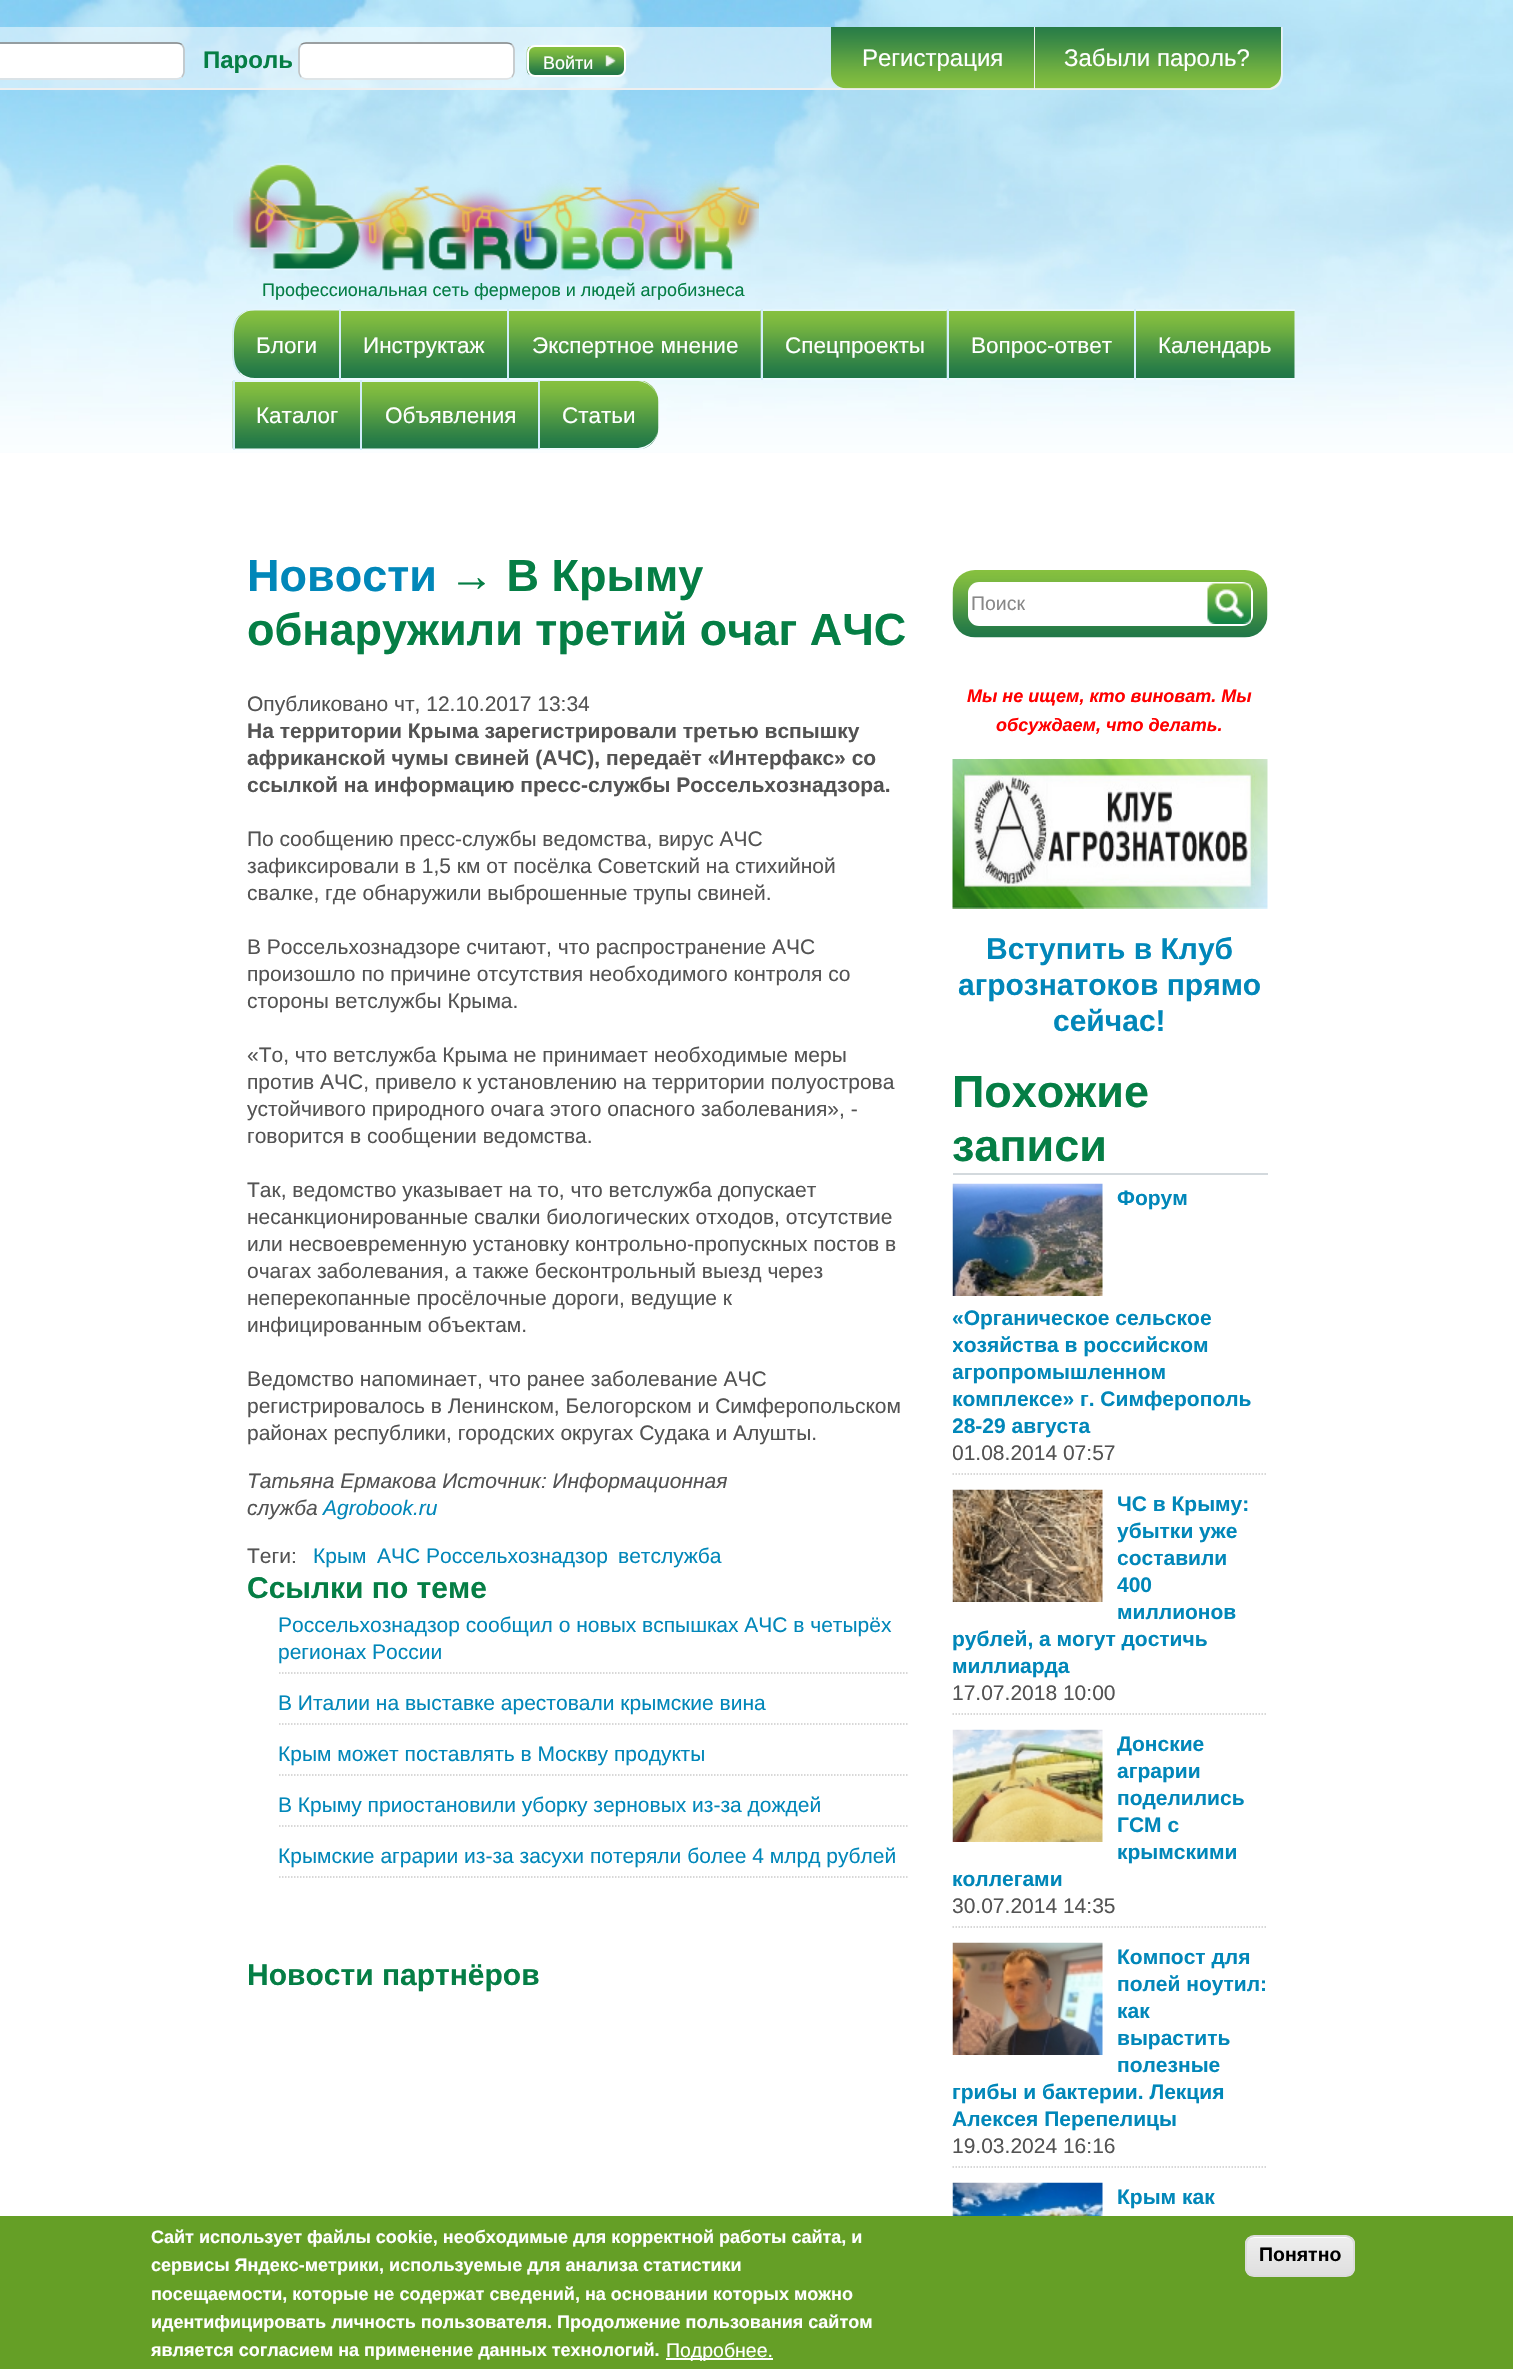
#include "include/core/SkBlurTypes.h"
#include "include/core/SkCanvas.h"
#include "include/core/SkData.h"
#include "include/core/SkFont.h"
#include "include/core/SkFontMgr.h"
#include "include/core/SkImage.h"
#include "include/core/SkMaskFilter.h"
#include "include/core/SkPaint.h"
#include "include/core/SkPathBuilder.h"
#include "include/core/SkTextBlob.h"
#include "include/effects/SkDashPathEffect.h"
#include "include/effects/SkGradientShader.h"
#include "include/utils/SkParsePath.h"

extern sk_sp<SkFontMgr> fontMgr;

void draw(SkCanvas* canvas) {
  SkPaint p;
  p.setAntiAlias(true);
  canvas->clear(SK_ColorWHITE);
  canvas->drawImageRect(SkImages::DeferredFromEncodedData(SkData::MakeFromFileName("images/1.png")), SkRect::MakeLTRB(0, 0, 1513, 453), SkSamplingOptions());
  p.setColor(SkColorSetARGB(128, 255, 255, 255));
  canvas->drawPath(SkPathBuilder().moveTo(-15, 27).lineTo(1283, 27).lineTo(1283, 75).cubicTo(1283, 83.5f, 1276.5f, 90, 1268, 90).lineTo(0, 90).cubicTo(-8.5f, 90, -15, 83.5f, -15, 75).close().detach(), p);
  p.setColor(SkColorSetRGB(239, 239, 239));
  canvas->drawPath(SkPathBuilder(SkPathFillType::kEvenOdd).moveTo(-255, 27).lineTo(1282, 27).lineTo(1282, 75).cubicTo(1282, 83, 1276, 90, 1268, 90).lineTo(-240, 90).cubicTo(-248, 90, -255, 83, -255, 75).close().moveTo(-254, 27).lineTo(1281, 27).lineTo(1281, 75).cubicTo(1281, 82, 1275, 88, 1268, 88).lineTo(-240, 88).cubicTo(-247, 88, -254, 82, -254, 75).close().detach(), p);
  p.setColor(SK_ColorWHITE);
  canvas->drawRoundRect(SkRect::MakeLTRB(-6, 44, 183, 78), 6, 6, p);
  p.setStyle(SkPaint::kStroke_Style);
  p.setStrokeWidth(1.5f);
  p.setColor(SkColorSetRGB(132, 132, 132));
  canvas->drawPath(SkPathBuilder().moveTo(-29, 44.5f).cubicTo(-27.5f, 43.5f, -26, 43, -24, 43).lineTo(177, 43).cubicTo(179, 43, 180.5f, 43.5f, 182, 44.5f).detach(), p);
  p.setColor(SkColorSetRGB(193, 193, 193));
  canvas->drawPath(SkPathBuilder().moveTo(182, 44.5f).cubicTo(183, 46, 184, 47.5f, 184, 49.5f).lineTo(184, 72).cubicTo(184, 74, 183, 75.5f, 182, 77).detach(), p);
  p.setColor(SkColorSetRGB(225, 225, 225));
  canvas->drawPath(SkPathBuilder().moveTo(182, 77).cubicTo(180.5f, 78, 179, 79, 177, 79).lineTo(-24, 79).cubicTo(-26, 79, -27.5f, 78, -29, 77).detach(), p);
  p.setStyle(SkPaint::kFill_Style);
  p.setColor(SK_ColorWHITE);
  canvas->drawRoundRect(SkRect::MakeLTRB(300, 44, 513, 78), 6, 6, p);
  p.setStyle(SkPaint::kStroke_Style);
  p.setColor(SkColorSetRGB(132, 132, 132));
  canvas->drawPath(SkPathBuilder().moveTo(301, 44.5f).cubicTo(302.5f, 43.5f, 304, 43, 306, 43).lineTo(507, 43).cubicTo(509, 43, 510.5f, 43.5f, 512, 44.5f).detach(), p);
  p.setColor(SkColorSetRGB(193, 193, 193));
  canvas->drawPath(SkPathBuilder().moveTo(512, 44.5f).cubicTo(513, 46, 514, 47.5f, 514, 49.5f).lineTo(514, 72).cubicTo(514, 74, 513, 75.5f, 512, 77).detach(), p);
  p.setColor(SkColorSetRGB(225, 225, 225));
  canvas->drawPath(SkPathBuilder().moveTo(512, 77).cubicTo(510.5f, 78, 509, 79, 507, 79).lineTo(306, 79).cubicTo(304, 79, 302.5f, 78, 301, 77).detach(), p);
  p.setColor(SkColorSetRGB(193, 193, 193));
  canvas->drawPath(SkPathBuilder().moveTo(301, 77).cubicTo(300, 75.5f, 299, 74, 299, 72).lineTo(299, 49.5f).cubicTo(299, 47.5f, 300, 46, 301, 44.5f).detach(), p);
  canvas->drawImageRect(SkImages::DeferredFromEncodedData(SkData::MakeFromFileName("images/2.png")), SkRect::MakeLTRB(526, 46, 624, 75), SkSamplingOptions());
  p.setStrokeWidth(2);
  p.setColor(SK_ColorWHITE);
  canvas->drawRoundRect(SkRect::MakeLTRB(528, 46, 625, 76), 7, 7, p);
  canvas->drawImageRect(SkImages::DeferredFromEncodedData(SkData::MakeFromFileName("images/3.png")), SkRect::MakeLTRB(831, 27, 1034, 89), SkSamplingOptions());
  p.setStyle(SkPaint::kFill_Style);
  p.setColor(SkColorSetRGB(239, 239, 239));
  canvas->drawRect(SkRect::MakeLTRB(1034, 27, 1036, 89), p);
  canvas->drawImageRect(SkImages::DeferredFromEncodedData(SkData::MakeFromFileName("images/4.png")), SkRect::MakeLTRB(1035, 27, 1281, 89), SkSamplingOptions());
  canvas->drawImageRect(SkImages::DeferredFromEncodedData(SkData::MakeFromFileName("images/5.png")), SkRect::MakeLTRB(233, 163, 759, 271), SkSamplingOptions());
  canvas->drawImageRect(SkImages::DeferredFromEncodedData(SkData::MakeFromFileName("images/6.png")), SkRect::MakeLTRB(232, 310, 339, 378), SkSamplingOptions());
  p.setColor(SkColorSetRGB(230, 246, 252));
  canvas->drawPath(SkPathBuilder().moveTo(255, 309).cubicTo(249, 309, 243, 311, 239, 316).lineTo(240, 316).cubicTo(244, 312, 249, 310, 255, 310).lineTo(339, 310).lineTo(339, 309).close().detach(), p);
  p.setColor(SkColorSetRGB(240, 251, 255));
  canvas->drawPath(SkPathBuilder().moveTo(339, 380).lineTo(251, 380).cubicTo(246, 379, 242, 376, 239, 373).lineTo(240, 372).cubicTo(244, 376, 249, 378, 255, 378).lineTo(339, 378).close().detach(), p);
  canvas->save();
  canvas->clipRect(SkRect::MakeLTRB(233, 309, 1298, 450));
  p.setColor(SkColorSetRGB(210, 237, 251));
  canvas->drawPath(SkPathBuilder().moveTo(232, 327).cubicTo(233, 323, 236, 319, 239, 316).lineTo(240, 316).cubicTo(233, 324, 234, 335, 234, 344).cubicTo(234, 354, 233, 365, 240, 372).lineTo(239, 373).cubicTo(236, 370, 233, 366, 232, 361).close().detach(), p);
  canvas->restore();
  canvas->drawImageRect(SkImages::DeferredFromEncodedData(SkData::MakeFromFileName("images/7.png")), SkRect::MakeLTRB(341, 311, 507, 378), SkSamplingOptions());
  p.setColor(SkColorSetRGB(230, 246, 252));
  canvas->drawRect(SkRect::MakeLTRB(339, 309, 761, 311), p);
  p.setColor(SkColorSetRGB(240, 251, 255));
  canvas->drawRect(SkRect::MakeLTRB(339, 378, 462, 380), p);
  p.setColor(SkColorSetRGB(210, 237, 251));
  canvas->drawRect(SkRect::MakeLTRB(339, 309, 341, 380), p);
  canvas->drawImageRect(SkImages::DeferredFromEncodedData(SkData::MakeFromFileName("images/8.png")), SkRect::MakeLTRB(509, 311, 761, 378), SkSamplingOptions());
  p.setColor(SkColorSetRGB(240, 251, 255));
  canvas->drawRect(SkRect::MakeLTRB(570, 378, 1295, 380), p);
  p.setColor(SkColorSetRGB(210, 237, 251));
  canvas->drawRect(SkRect::MakeLTRB(507, 309, 509, 380), p);
  canvas->drawImageRect(SkImages::DeferredFromEncodedData(SkData::MakeFromFileName("images/9.png")), SkRect::MakeLTRB(760, 310, 947, 378), SkSamplingOptions());
  p.setColor(SkColorSetRGB(230, 246, 252));
  canvas->drawRect(SkRect::MakeLTRB(761, 309, 947, 311), p);
  p.setColor(SkColorSetRGB(210, 237, 251));
  canvas->drawRect(SkRect::MakeLTRB(761, 309, 763, 380), p);
  canvas->drawImageRect(SkImages::DeferredFromEncodedData(SkData::MakeFromFileName("images/10.png")), SkRect::MakeLTRB(946, 310, 1134, 378), SkSamplingOptions());
  p.setColor(SkColorSetRGB(230, 246, 252));
  canvas->drawRect(SkRect::MakeLTRB(947, 309, 1295, 311), p);
  p.setColor(SkColorSetRGB(210, 237, 251));
  canvas->drawRect(SkRect::MakeLTRB(947, 309, 949, 380), p);
  canvas->drawImageRect(SkImages::DeferredFromEncodedData(SkData::MakeFromFileName("images/11.png")), SkRect::MakeLTRB(1136, 311, 1295, 378), SkSamplingOptions());
  canvas->drawRect(SkRect::MakeLTRB(1134, 309, 1136, 380), p);
  canvas->drawImageRect(SkImages::DeferredFromEncodedData(SkData::MakeFromFileName("images/12.png")), SkRect::MakeLTRB(232, 381, 360, 449), SkSamplingOptions());
  p.setColor(SkColorSetRGB(230, 246, 252));
  canvas->drawRect(SkRect::MakeLTRB(233, 380, 539, 382), p);
  p.setColor(SkColorSetRGB(240, 251, 255));
  canvas->drawRect(SkRect::MakeLTRB(233, 449, 539, 450), p);
  p.setColor(SkColorSetRGB(210, 237, 251));
  canvas->drawRect(SkRect::MakeLTRB(233, 380, 235, 450), p);
  canvas->drawImageRect(SkImages::DeferredFromEncodedData(SkData::MakeFromFileName("images/13.png")), SkRect::MakeLTRB(362, 382, 538, 449), SkSamplingOptions());
  canvas->drawRect(SkRect::MakeLTRB(360, 380, 362, 450), p);
  canvas->drawImageRect(SkImages::DeferredFromEncodedData(SkData::MakeFromFileName("images/14.png")), SkRect::MakeLTRB(539, 381, 659, 449), SkSamplingOptions());
  p.setColor(SkColorSetRGB(230, 246, 252));
  canvas->drawPath(SkPathBuilder().moveTo(540, 381).lineTo(539, 380).lineTo(636, 380).cubicTo(647, 380, 657, 389, 658, 400).cubicTo(657, 389, 647, 381, 636, 381).close().detach(), p);
  p.setColor(SkColorSetRGB(240, 251, 255));
  canvas->drawPath(SkPathBuilder().moveTo(538, 450).lineTo(636, 450).cubicTo(648, 450, 658, 440, 658, 428).cubicTo(658, 439, 648, 448, 636, 448).lineTo(540, 448).close().detach(), p);
  p.setColor(SkColorSetRGB(210, 237, 251));
  canvas->drawPath(SkPathBuilder().moveTo(540, 381).lineTo(538, 380).lineTo(538, 450).lineTo(540, 448).close().detach(), p);
  p.setStyle(SkPaint::kStroke_Style);
  p.setStrokeWidth(1.5f);
  p.setColor(SkColorSetRGB(204, 204, 204));
  p.setPathEffect(SkDashPathEffect::Make({{1.5f, 1.5f}}, 0));
  canvas->drawPath(SkPathBuilder().moveTo(279, 1673).lineTo(907.5f, 1673).detach(), p);
  p.setPathEffect(nullptr);
  p.setPathEffect(SkDashPathEffect::Make({{1.5f, 1.5f}}, 0));
  canvas->drawPath(SkPathBuilder().moveTo(279, 1724).lineTo(907.5f, 1724).detach(), p);
  p.setPathEffect(nullptr);
  p.setPathEffect(SkDashPathEffect::Make({{1.5f, 1.5f}}, 0));
  canvas->drawPath(SkPathBuilder().moveTo(279, 1775).lineTo(907.5f, 1775).detach(), p);
  p.setPathEffect(nullptr);
  p.setPathEffect(SkDashPathEffect::Make({{1.5f, 1.5f}}, 0));
  canvas->drawPath(SkPathBuilder().moveTo(279, 1826).lineTo(907.5f, 1826).detach(), p);
  p.setPathEffect(nullptr);
  p.setPathEffect(SkDashPathEffect::Make({{1.5f, 1.5f}}, 0));
  canvas->drawPath(SkPathBuilder().moveTo(279, 1877).lineTo(907.5f, 1877).detach(), p);
  p.setPathEffect(nullptr);
  canvas->drawImageRect(SkImages::DeferredFromEncodedData(SkData::MakeFromFileName("images/15.png")), SkRect::MakeLTRB(952, 570, 1268, 638), SkSamplingOptions());
  p.setStyle(SkPaint::kFill_Style);
  p.setColor(SK_ColorWHITE);
  canvas->drawRoundRect(SkRect::MakeLTRB(968, 582, 1253, 626), 11, 11, p);
  canvas->drawImageRect(SkImages::DeferredFromEncodedData(SkData::MakeFromFileName("images/16.png")), SkRect::MakeLTRB(1207, 583, 1251, 624), SkSamplingOptions());
  canvas->drawImageRect(SkImages::DeferredFromEncodedData(SkData::MakeFromFileName("images/17.png")), SkRect::MakeLTRB(952, 759, 1268, 909), SkSamplingOptions());
  p.setColor(SkColorSetRGB(211, 217, 221));
  canvas->drawRect(SkRect::MakeLTRB(953, 1173, 1268, 1175), p);
  p.setStyle(SkPaint::kStroke_Style);
  p.setColor(SkColorSetRGB(204, 204, 204));
  p.setPathEffect(SkDashPathEffect::Make({{1.5f, 1.5f}}, 0));
  canvas->drawPath(SkPathBuilder().moveTo(952.5f, 1474).lineTo(1267.5f, 1474).detach(), p);
  p.setPathEffect(nullptr);
  canvas->drawImageRect(SkImages::DeferredFromEncodedData(SkData::MakeFromFileName("images/18.png")), SkRect::MakeLTRB(952, 1183, 1103, 1296), SkSamplingOptions());
  p.setPathEffect(SkDashPathEffect::Make({{1.5f, 1.5f}}, 0));
  canvas->drawPath(SkPathBuilder().moveTo(952.5f, 1714).lineTo(1267.5f, 1714).detach(), p);
  p.setPathEffect(nullptr);
  canvas->drawImageRect(SkImages::DeferredFromEncodedData(SkData::MakeFromFileName("images/19.png")), SkRect::MakeLTRB(952, 1489, 1103, 1602), SkSamplingOptions());
  p.setPathEffect(SkDashPathEffect::Make({{1.5f, 1.5f}}, 0));
  canvas->drawPath(SkPathBuilder().moveTo(952.5f, 1927).lineTo(1267.5f, 1927).detach(), p);
  p.setPathEffect(nullptr);
  canvas->drawImageRect(SkImages::DeferredFromEncodedData(SkData::MakeFromFileName("images/20.png")), SkRect::MakeLTRB(952, 1729, 1103, 1842), SkSamplingOptions());
  p.setPathEffect(SkDashPathEffect::Make({{1.5f, 1.5f}}, 0));
  canvas->drawPath(SkPathBuilder().moveTo(952.5f, 2167).lineTo(1267.5f, 2167).detach(), p);
  p.setPathEffect(nullptr);
  canvas->drawImageRect(SkImages::DeferredFromEncodedData(SkData::MakeFromFileName("images/21.png")), SkRect::MakeLTRB(952, 1942, 1103, 2055), SkSamplingOptions());
  canvas->drawImageRect(SkImages::DeferredFromEncodedData(SkData::MakeFromFileName("images/22.png")), SkRect::MakeLTRB(952, 2182, 1103, 2216), SkSamplingOptions());
  p.setStyle(SkPaint::kFill_Style);
  p.setColor(SkColorSetRGB(101, 159, 38));
  canvas->drawRect(SkRect::MakeLTRB(0, 2216, 1513, 2369), p);
  p.setColor(SK_ColorWHITE);
  canvas->drawRect(SkRect::MakeLTRB(666, 2358, 773, 2360), p);
  canvas->save();
  canvas->clipPath(SkPathBuilder().moveTo(1254, 2235).lineTo(1346, 2235).cubicTo(1351, 2235, 1355, 2239, 1355, 2244).lineTo(1355, 2268).cubicTo(1355, 2273, 1351, 2277, 1346, 2277).lineTo(1254, 2277).cubicTo(1249, 2277, 1245, 2273, 1245, 2268).lineTo(1245, 2244).cubicTo(1245, 2239, 1249, 2235, 1254, 2235).close().detach(), true);
  {
    const SkColor colors[] = {SkColorSetRGB(237, 237, 237), SkColorSetRGB(223, 223, 223)};
    const float stops[] = {0.05f, 1};
    const SkPoint ends[] = {{1300, 2237}, {1300, 2276}};
    p.setShader(SkGradientShader::MakeLinear(ends, colors, stops, 2, SkTileMode::kClamp));
    p.setAlpha(255);
  }
  canvas->drawRect(SkRect::MakeLTRB(1245, 2237, 1355, 2276), p);
  canvas->restore();
  p.setShader(nullptr);
  p.setColor(SK_ColorWHITE);
  canvas->drawPath(SkPathBuilder().moveTo(1254, 2238).lineTo(1346, 2238).cubicTo(1350, 2238, 1353, 2241, 1353, 2246).lineTo(1353, 2245).cubicTo(1353, 2241, 1349, 2237, 1345, 2237).lineTo(1255, 2237).cubicTo(1253, 2237, 1250, 2238, 1249, 2240).cubicTo(1250, 2239, 1252, 2238, 1254, 2238).close().detach(), p);
  p.setStyle(SkPaint::kStroke_Style);
  p.setStrokeWidth(2);
  p.setColor(SkColorSetRGB(220, 220, 220));
  canvas->drawRoundRect(SkRect::MakeLTRB(1246, 2236, 1354, 2276), 8, 8, p);
  SkFont font1(fontMgr->matchFamilyStyle("Liberation Sans", SkFontStyle::Bold()), 24);
  font1.setSubpixel(true);
  p.setStyle(SkPaint::kFill_Style);
  p.setColor(SkColorSetRGB(5, 126, 69));
  canvas->drawString("Пароль", 203, 68, font1, p);
  SkFont font2(fontMgr->matchFamilyStyle("Liberation Sans", SkFontStyle::Normal()), 18);
  font2.setSubpixel(true);
  p.setColor(SK_ColorWHITE);
  canvas->drawString("Войти", 543, 69, font2, p);
  SkFont font3(fontMgr->matchFamilyStyle("Liberation Sans", SkFontStyle::Normal()), 24);
  font3.setSubpixel(true);
  canvas->drawString("Регистрация", 862, 66, font3, p);
  canvas->drawString("Забыли пароль?", 1064, 66, font3, p);
  p.setColor(SkColorSetRGB(5, 126, 69));
  canvas->drawString("Профессиональная сеть фермеров и людей агробизнеса", 262, 296, font2, p);
  SkFont font4(fontMgr->matchFamilyStyle("Liberation Sans", SkFontStyle::Normal()), 22.5f);
  font4.setSubpixel(true);
  p.setColor(SK_ColorWHITE);
  canvas->drawString("Блоги", 256, 353, font4, p);
  canvas->drawString("Инструктаж", 363, 353, font4, p);
  canvas->drawString("Экспертное мнение", 532, 353, font4, p);
  canvas->drawString("Спецпроекты", 785, 353, font4, p);
  canvas->drawString("Вопрос-ответ", 971, 353, font4, p);
  canvas->drawString("Календарь", 1158, 353, font4, p);
  canvas->drawString("Каталог", 256, 423, font4, p);
  canvas->drawString("Объявления", 385, 423, font4, p);
  canvas->drawString("Статьи", 562, 423, font4, p);
  SkFont font5(fontMgr->matchFamilyStyle("Liberation Sans", SkFontStyle::Bold()), 45);
  font5.setSubpixel(true);
  p.setColor(SkColorSetRGB(1, 135, 185));
  canvas->drawString("Новости", 247, 591, font5, p);
  p.setColor(SkColorSetRGB(5, 126, 69));
  canvas->drawString("→ В Крыму", 449, 591, font5, p);
  canvas->drawString("обнаружили третий очаг АЧС", 247, 645, font5, p);
  SkFont font6(fontMgr->matchFamilyStyle("Liberation Sans", SkFontStyle::Normal()), 21);
  font6.setSubpixel(true);
  p.setColor(SkColorSetRGB(83, 83, 83));
  canvas->drawString("Опубликовано чт, 12.10.2017 13:34", 247, 711, font6, p);
  SkFont font7(fontMgr->matchFamilyStyle("Liberation Sans", SkFontStyle::Bold()), 21);
  font7.setSubpixel(true);
  canvas->drawString("На территории Крыма зарегистрировали третью вспышку", 247, 738, font7, p);
  canvas->drawString("африканской чумы свиней (АЧС), передаёт «Интерфакс» со", 247, 765, font7, p);
  canvas->drawString("ссылкой на информацию пресс-службы Россельхознадзора.", 247, 792, font7, p);
  canvas->drawString("По сообщению пресс-службы ведомства, вирус АЧС", 247, 846, font6, p);
  canvas->drawString("зафиксировали в 1,5 км от посёлка Советский на стихийной", 247, 873, font6, p);
  canvas->drawString("свалке, где обнаружили выброшенные трупы свиней.", 247, 900, font6, p);
  canvas->drawString("В Россельхознадзоре считают, что распространение АЧС", 247, 954, font6, p);
  canvas->drawString("произошло по причине отсутствия необходимого контроля со", 247, 981, font6, p);
  canvas->drawString("стороны ветслужбы Крыма.", 247, 1008, font6, p);
  canvas->drawString("«То, что ветслужба Крыма не принимает необходимые меры", 247, 1062, font6, p);
  canvas->drawString("против АЧС, привело к установлению на территории полуострова", 247, 1089, font6, p);
  canvas->drawString("устойчивого природного очага этого опасного заболевания», -", 247, 1116, font6, p);
  canvas->drawString("говорится в сообщении ведомства.", 247, 1143, font6, p);
  canvas->drawString("Так, ведомство указывает на то, что ветслужба допускает", 247, 1197, font6, p);
  canvas->drawString("несанкционированные свалки биологических отходов, отсутствие", 247, 1224, font6, p);
  canvas->drawString("или несвоевременную установку контрольно-пропускных постов в", 247, 1251, font6, p);
  canvas->drawString("очагах заболевания, а также бесконтрольный выезд через", 247, 1278, font6, p);
  canvas->drawString("неперекопанные просёлочные дороги, ведущие к", 247, 1305, font6, p);
  canvas->drawString("инфицированным объектам.", 247, 1332, font6, p);
  canvas->drawString("Ведомство напоминает, что ранее заболевание АЧС", 247, 1386, font6, p);
  canvas->drawString("регистрировалось в Ленинском, Белогорском и Симферопольском", 247, 1413, font6, p);
  canvas->drawString("районах республики, городских округах Судака и Алушты.", 247, 1440, font6, p);
  SkFont font8(fontMgr->matchFamilyStyle("Liberation Sans", SkFontStyle::Italic()), 21);
  font8.setSubpixel(true);
  canvas->drawString("Татьяна Ермакова Источник: Информационная", 247, 1488, font8, p);
  canvas->drawString("служба", 247, 1515, font8, p);
  p.setColor(SkColorSetRGB(1, 135, 185));
  canvas->drawString("Agrobook.ru", 323, 1515, font8, p);
  p.setColor(SkColorSetRGB(83, 83, 83));
  canvas->drawString("Теги:", 247, 1563, font6, p);
  p.setColor(SkColorSetRGB(1, 135, 185));
  canvas->drawString("Крым", 313, 1563, font6, p);
  canvas->drawString("АЧС Россельхознадзор", 377, 1563, font6, p);
  canvas->drawString("ветслужба", 618, 1563, font6, p);
  SkFont font9(fontMgr->matchFamilyStyle("Liberation Sans", SkFontStyle::Bold()), 30);
  font9.setSubpixel(true);
  p.setColor(SkColorSetRGB(5, 126, 69));
  canvas->drawString("Ссылки по теме", 247, 1598, font9, p);
  p.setColor(SkColorSetRGB(1, 135, 185));
  canvas->drawString("Россельхознадзор сообщил о новых вспышках АЧС в четырёх", 278, 1632, font6, p);
  canvas->drawString("регионах России", 278, 1659, font6, p);
  canvas->drawString("В Италии на выставке арестовали крымские вина", 278, 1710, font6, p);
  canvas->drawString("Крым может поставлять в Москву продукты", 278, 1761, font6, p);
  canvas->drawString("В Крыму приостановили уборку зерновых из-за дождей", 278, 1812, font6, p);
  canvas->drawString("Крымские аграрии из-за засухи потеряли более 4 млрд рублей", 278, 1863, font6, p);
  p.setColor(SkColorSetRGB(5, 126, 69));
  canvas->drawString("Новости партнёров", 247, 1985, font9, p);
  SkFont font10(fontMgr->matchFamilyStyle("Liberation Sans", SkFontStyle::Normal()), 19.5f);
  font10.setSubpixel(true);
  p.setColor(SkColorSetRGB(136, 136, 136));
  canvas->drawString("Поиск", 971, 610, font10, p);
  SkFont font11(fontMgr->matchFamilyStyle("Liberation Sans", SkFontStyle::BoldItalic()), 18);
  font11.setSubpixel(true);
  p.setColor(SkColorSetRGB(255, 0, 0));
  canvas->drawString("Мы не ищем, кто виноват. Мы", 967, 702, font11, p);
  canvas->drawString("обсуждаем, что делать.", 996, 731, font11, p);
  p.setColor(SkColorSetRGB(1, 135, 185));
  canvas->drawString("Вступить в Клуб", 986, 959, font9, p);
  canvas->drawString("агрознатоков прямо", 958, 995, font9, p);
  canvas->drawString("сейчас!", 1053, 1031, font9, p);
  p.setColor(SkColorSetRGB(5, 126, 69));
  canvas->drawString("Похожие", 952, 1107, font5, p);
  canvas->drawString("записи", 952, 1161, font5, p);
  p.setColor(SkColorSetRGB(1, 135, 185));
  canvas->drawString("Форум", 1117, 1205, font7, p);
  canvas->drawString("«Органическое сельское", 952, 1325, font7, p);
  canvas->save();
  canvas->clipRect(SkRect::MakeLTRB(953, 1184, 1268, 1473));
  canvas->drawString("хозяйства в российском", 952, 1352, font7, p);
  canvas->drawString("агропромышленном", 952, 1379, font7, p);
  canvas->restore();
  canvas->drawString("комплексе» г. Симферополь", 952, 1406, font7, p);
  canvas->save();
  canvas->clipRect(SkRect::MakeLTRB(953, 1184, 1268, 1473));
  canvas->drawString("28-29 августа", 952, 1433, font7, p);
  p.setColor(SkColorSetRGB(83, 83, 83));
  canvas->drawString("01.08.2014 07:57", 952, 1460, font6, p);
  canvas->restore();
  p.setColor(SkColorSetRGB(1, 135, 185));
  canvas->drawString("ЧС в Крыму:", 1117, 1511, font7, p);
  canvas->drawString("убытки уже", 1117, 1538, font7, p);
  canvas->drawString("составили", 1117, 1565, font7, p);
  canvas->drawString("400", 1117, 1592, font7, p);
  canvas->drawString("миллионов", 1117, 1619, font7, p);
  canvas->drawString("рублей, а могут достичь", 952, 1646, font7, p);
  canvas->drawString("миллиарда", 952, 1673, font7, p);
  p.setColor(SkColorSetRGB(83, 83, 83));
  canvas->drawString("17.07.2018 10:00", 952, 1700, font6, p);
  p.setColor(SkColorSetRGB(1, 135, 185));
  canvas->drawString("Донские", 1117, 1751, font7, p);
  canvas->drawString("аграрии", 1117, 1778, font7, p);
  canvas->drawString("поделились", 1117, 1805, font7, p);
  canvas->drawString("ГСМ с", 1117, 1832, font7, p);
  canvas->drawString("крымскими", 1117, 1859, font7, p);
  canvas->drawString("коллегами", 952, 1886, font7, p);
  canvas->save();
  canvas->clipRect(SkRect::MakeLTRB(953, 1730, 1268, 1926));
  p.setColor(SkColorSetRGB(83, 83, 83));
  canvas->drawString("30.07.2014 14:35", 952, 1913, font6, p);
  canvas->restore();
  p.setColor(SkColorSetRGB(1, 135, 185));
  canvas->drawString("Компост для", 1117, 1964, font7, p);
  canvas->drawString("полей ноутил:", 1117, 1991, font7, p);
  canvas->drawString("как", 1117, 2018, font7, p);
  canvas->drawString("вырастить", 1117, 2045, font7, p);
  canvas->drawString("полезные", 1117, 2072, font7, p);
  canvas->drawString("грибы и бактерии. Лекция", 952, 2099, font7, p);
  canvas->drawString("Алексея Перепелицы", 952, 2126, font7, p);
  p.setColor(SkColorSetRGB(83, 83, 83));
  canvas->drawString("19.03.2024 16:16", 952, 2153, font6, p);
  p.setColor(SkColorSetRGB(1, 135, 185));
  canvas->drawString("Крым как", 1117, 2204, font7, p);
  SkFont font12(fontMgr->matchFamilyStyle("Liberation Sans", SkFontStyle::Bold()), 18);
  font12.setSubpixel(true);
  p.setColor(SK_ColorWHITE);
  canvas->drawString("Сайт использует файлы cookie, необходимые для корректной работы сайта, и", 151, 2243, font12, p);
  canvas->drawString("сервисы Яндекс-метрики, используемые для анализа статистики", 151, 2271, font12, p);
  canvas->drawString("посещаемости, которые не содержат сведений, на основании которых можно", 151, 2300, font12, p);
  canvas->drawString("идентифицировать личность пользователя. Продолжение пользования сайтом", 151, 2328, font12, p);
  canvas->drawString("является согласием на применение данных технологий.", 151, 2356, font12, p);
  canvas->drawString("Подробнее.", 666, 2357, font10, p);
  SkFont font13(fontMgr->matchFamilyStyle("Liberation Sans", SkFontStyle::Bold()), 19.5f);
  font13.setSubpixel(true);
  p.setColor(SK_ColorBLACK);
  canvas->drawString("Понятно", 1259, 2261, font13, p);
}
